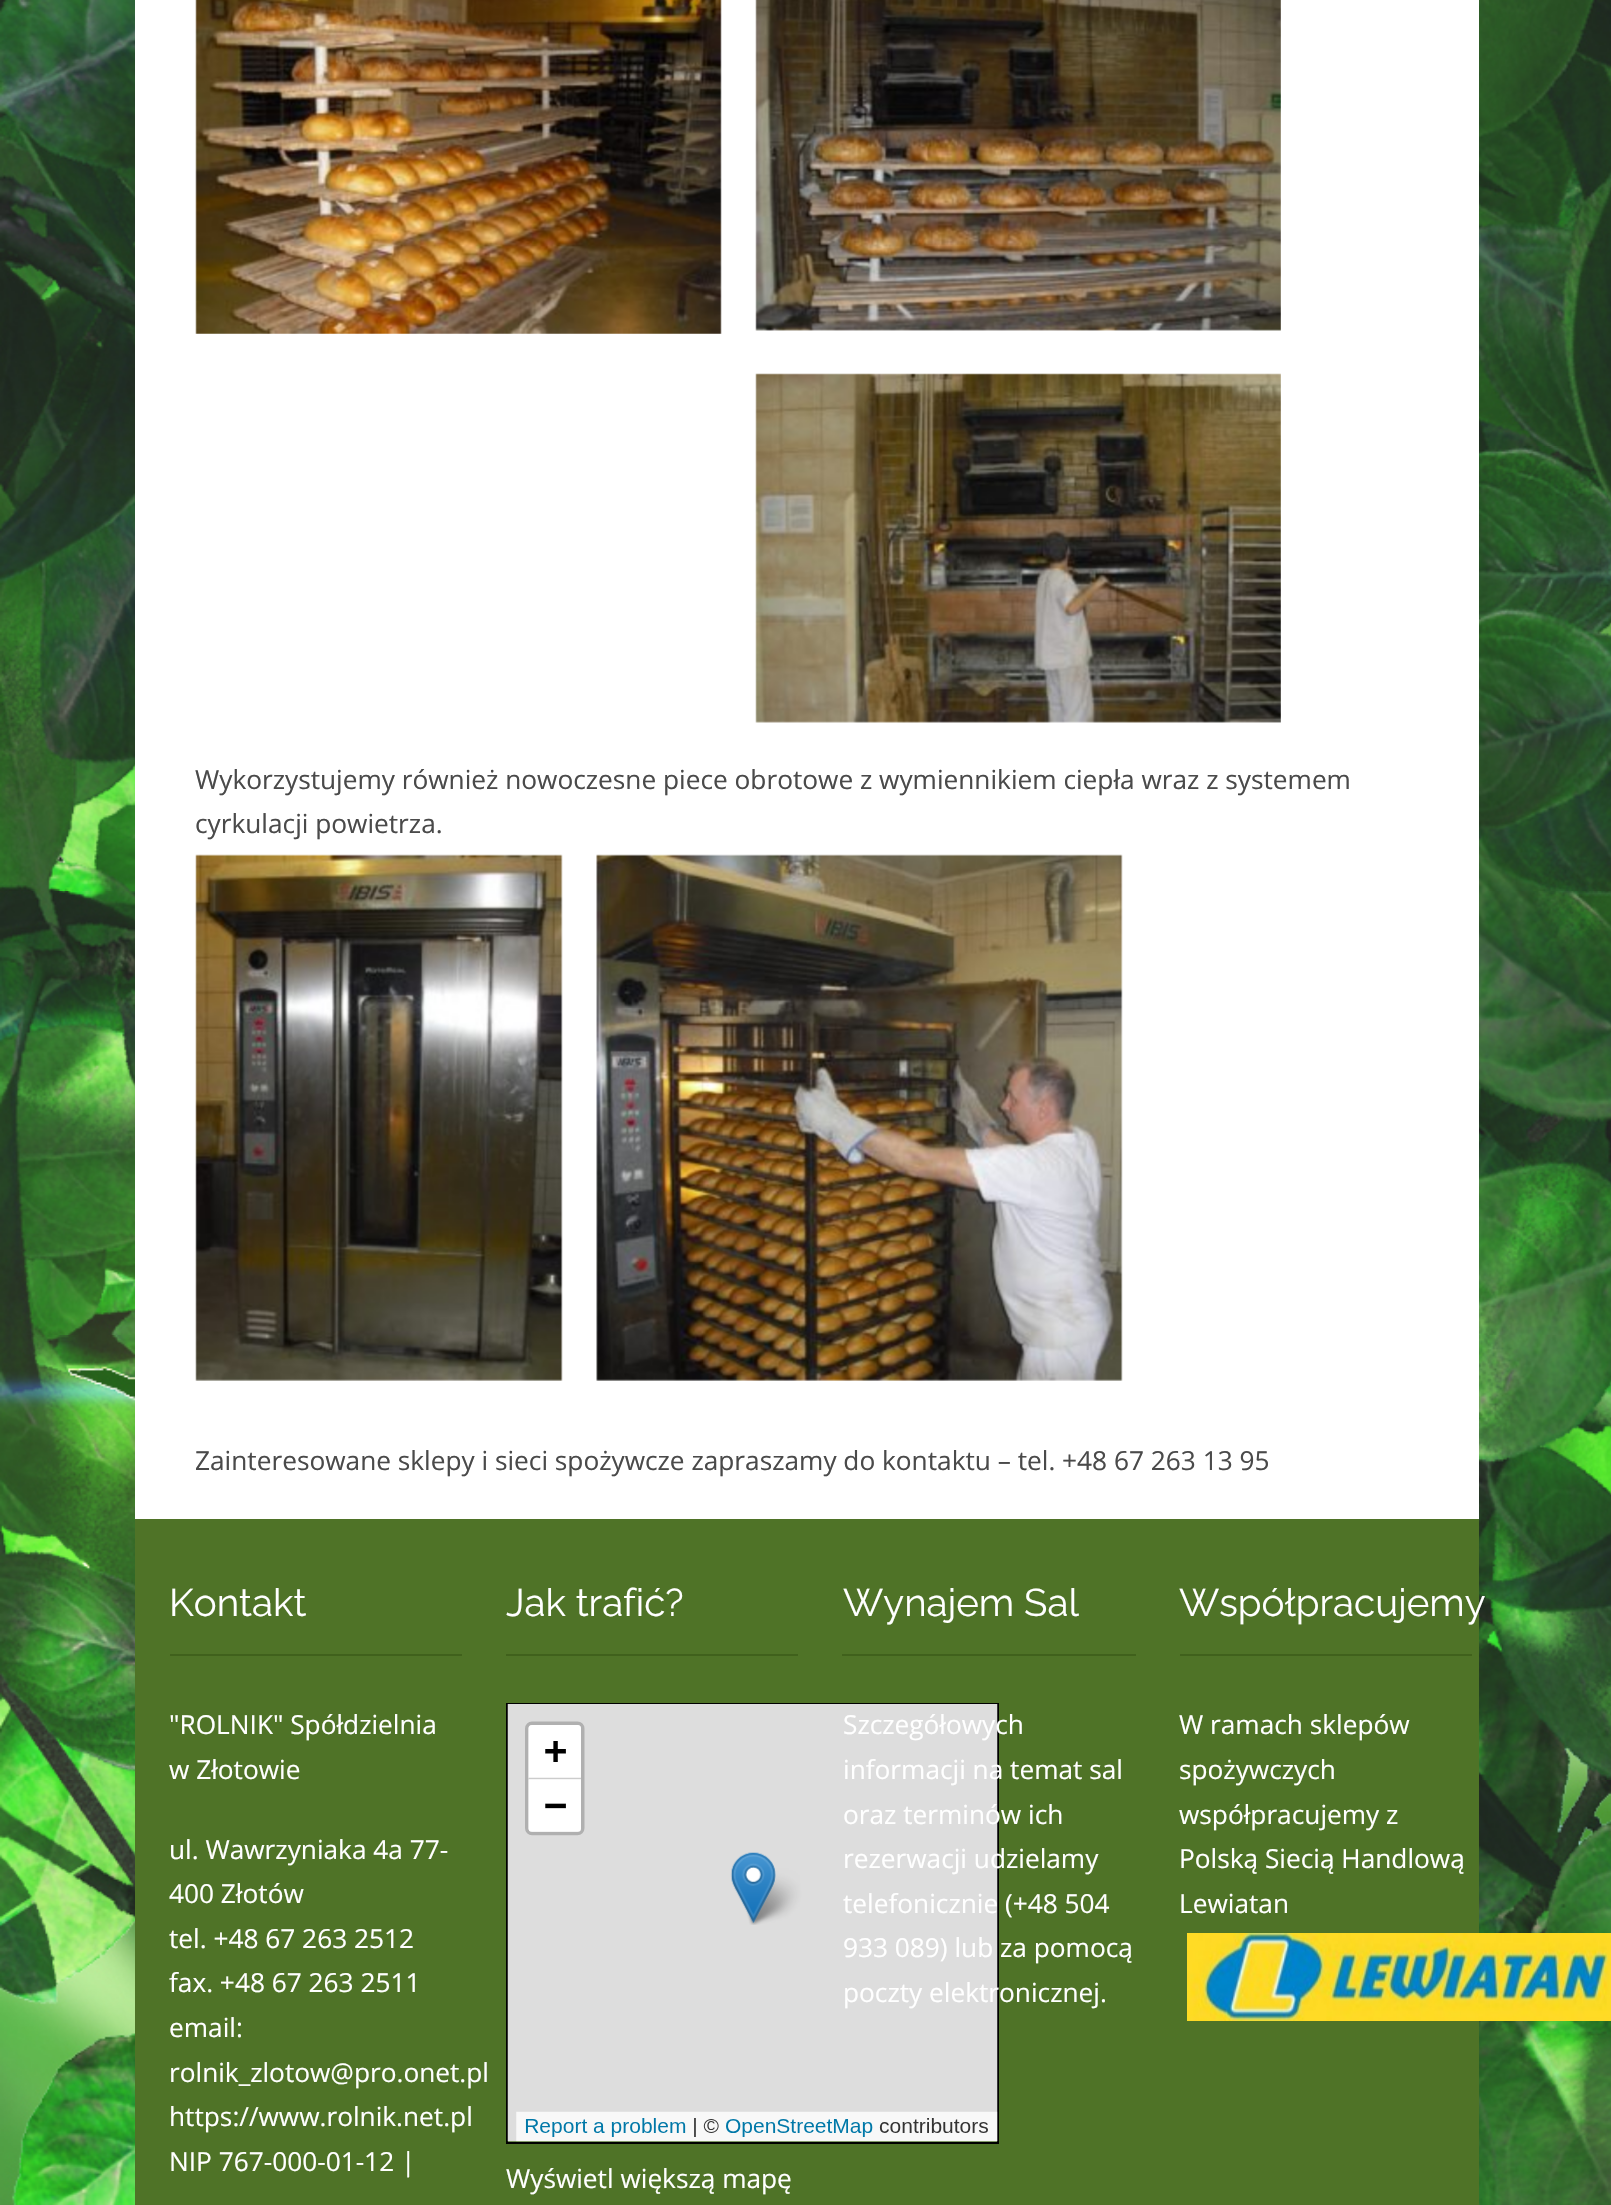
#include "include/core/SkBlurTypes.h"
#include "include/core/SkCanvas.h"
#include "include/core/SkData.h"
#include "include/core/SkFont.h"
#include "include/core/SkFontMgr.h"
#include "include/core/SkImage.h"
#include "include/core/SkMaskFilter.h"
#include "include/core/SkPaint.h"
#include "include/core/SkPathBuilder.h"
#include "include/core/SkTextBlob.h"
#include "include/effects/SkDashPathEffect.h"
#include "include/effects/SkGradientShader.h"
#include "include/utils/SkParsePath.h"

extern sk_sp<SkFontMgr> fontMgr;

void draw(SkCanvas* canvas) {
  SkPaint p;
  p.setAntiAlias(true);
  canvas->clear(SK_ColorWHITE);
  canvas->drawImageRect(SkImages::DeferredFromEncodedData(SkData::MakeFromFileName("images/1.png")), SkRect::MakeLTRB(0, 0, 1611, 2205), SkSamplingOptions());
  p.setColor(SK_ColorWHITE);
  canvas->drawRect(SkRect::MakeLTRB(135, 0, 1479, 1519), p);
  canvas->drawImageRect(SkImages::DeferredFromEncodedData(SkData::MakeFromFileName("images/2.png")), SkRect::MakeLTRB(195, 0, 722, 334), SkSamplingOptions());
  canvas->drawImageRect(SkImages::DeferredFromEncodedData(SkData::MakeFromFileName("images/3.png")), SkRect::MakeLTRB(755, 0, 1281, 331), SkSamplingOptions());
  canvas->drawImageRect(SkImages::DeferredFromEncodedData(SkData::MakeFromFileName("images/4.png")), SkRect::MakeLTRB(755, 373, 1281, 723), SkSamplingOptions());
  canvas->drawImageRect(SkImages::DeferredFromEncodedData(SkData::MakeFromFileName("images/5.png")), SkRect::MakeLTRB(195, 854, 563, 1381), SkSamplingOptions());
  canvas->drawImageRect(SkImages::DeferredFromEncodedData(SkData::MakeFromFileName("images/6.png")), SkRect::MakeLTRB(596, 854, 1123, 1381), SkSamplingOptions());
  p.setColor(SkColorSetRGB(79, 115, 39));
  canvas->drawRect(SkRect::MakeLTRB(135, 1519, 1479, 2205), p);
  p.setColor(SkColorSetRGB(64, 97, 28));
  canvas->drawRect(SkRect::MakeLTRB(170, 1654, 462, 1656), p);
  canvas->drawRect(SkRect::MakeLTRB(506, 1654, 798, 1656), p);
  p.setStyle(SkPaint::kStroke_Style);
  p.setStrokeWidth(2);
  p.setColor(SK_ColorBLACK);
  canvas->drawRect(SkRect::MakeLTRB(507, 1704, 998, 2143), p);
  canvas->drawImageRect(SkImages::DeferredFromEncodedData(SkData::MakeFromFileName("images/7.png")), SkRect::MakeLTRB(507, 1704, 998, 2142), SkSamplingOptions());
  p.setStyle(SkPaint::kFill_Style);
  p.setColor(SkColorSetRGB(64, 97, 28));
  canvas->drawRect(SkRect::MakeLTRB(842, 1654, 1136, 1656), p);
  canvas->drawRect(SkRect::MakeLTRB(1180, 1654, 1472, 1656), p);
  canvas->drawImageRect(SkImages::DeferredFromEncodedData(SkData::MakeFromFileName("images/8.png")), SkRect::MakeLTRB(1187, 1933, 1611, 2021), SkSamplingOptions());
  SkFont font1(fontMgr->matchFamilyStyle("Open Sans", SkFontStyle::Normal()), 26.25f);
  font1.setSubpixel(true);
  p.setColor(SkColorSetRGB(74, 74, 74));
  canvas->drawString("Wykorzystujemy również nowoczesne piece obrotowe z wymiennikiem ciepła wraz z systemem", 195, 789, font1, p);
  canvas->drawString("cyrkulacji powietrza.", 195, 833, font1, p);
  canvas->drawString("Zainteresowane sklepy i sieci spożywcze zapraszamy do kontaktu – tel. +48 67 263 13 95", 195, 1470, font1, p);
  SkFont font2(fontMgr->matchFamilyStyle("Raleway", SkFontStyle::Normal()), 38.5f);
  font2.setSubpixel(true);
  p.setColor(SK_ColorWHITE);
  canvas->drawString("Kontakt", 169, 1616, font2, p);
  canvas->drawString("\"ROLNIK\" Spółdzielnia", 169, 1734, font1, p);
  canvas->drawString("w Złotowie", 169, 1779, font1, p);
  canvas->drawString("ul. Wawrzyniaka 4a 77-", 169, 1859, font1, p);
  canvas->drawString("400 Złotów", 169, 1903, font1, p);
  canvas->drawString("tel. +48 67 263 2512", 169, 1948, font1, p);
  canvas->drawString("fax. +48 67 263 2511", 169, 1992, font1, p);
  canvas->drawString("email:", 169, 2037, font1, p);
  canvas->drawString("rolnik_zlotow@pro.onet.pl", 169, 2082, font1, p);
  canvas->drawString("https://www.rolnik.net.pl", 169, 2126, font1, p);
  canvas->drawString("NIP 767-000-01-12 |", 169, 2171, font1, p);
  canvas->drawString("Jak trafić?", 506, 1616, font2, p);
  canvas->drawString("Wyświetl większą mapę", 506, 2188, font1, p);
  canvas->drawString("Wynajem Sal", 843, 1616, font2, p);
  canvas->drawString("Szczegółowych", 843, 1734, font1, p);
  canvas->drawString("informacji na temat sal", 843, 1779, font1, p);
  canvas->drawString("oraz terminów ich", 843, 1824, font1, p);
  canvas->drawString("rezerwacji udzielamy", 843, 1868, font1, p);
  canvas->drawString("telefonicznie (+48 504", 843, 1913, font1, p);
  canvas->drawString("933 089) lub za pomocą", 843, 1957, font1, p);
  canvas->drawString("poczty elektronicznej.", 843, 2002, font1, p);
  canvas->drawString("Współpracujemy", 1179, 1616, font2, p);
  canvas->drawString("W ramach sklepów", 1179, 1734, font1, p);
  canvas->drawString("spożywczych", 1179, 1779, font1, p);
  canvas->drawString("współpracujemy z", 1179, 1824, font1, p);
  canvas->drawString("Polską Siecią Handlową", 1179, 1868, font1, p);
  canvas->drawString("Lewiatan", 1179, 1913, font1, p);
}
